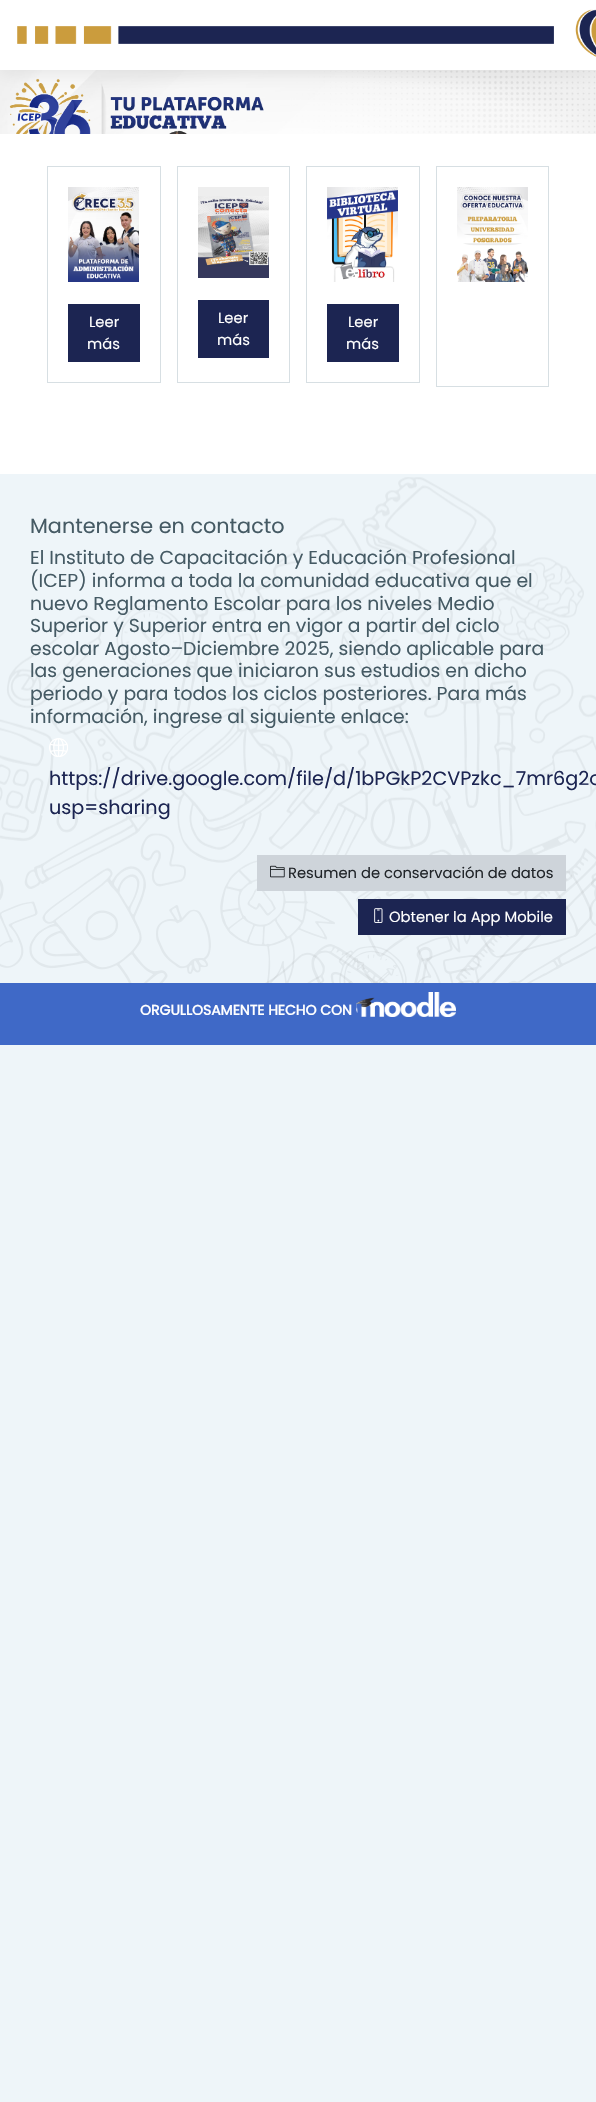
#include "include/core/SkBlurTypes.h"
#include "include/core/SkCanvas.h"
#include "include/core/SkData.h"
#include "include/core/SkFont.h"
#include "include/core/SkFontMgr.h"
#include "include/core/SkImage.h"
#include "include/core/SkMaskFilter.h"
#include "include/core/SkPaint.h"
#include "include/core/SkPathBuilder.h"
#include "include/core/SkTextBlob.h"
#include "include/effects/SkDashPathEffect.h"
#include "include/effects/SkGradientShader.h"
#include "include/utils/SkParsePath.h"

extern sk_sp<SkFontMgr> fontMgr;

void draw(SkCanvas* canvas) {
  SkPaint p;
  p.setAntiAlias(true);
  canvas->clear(SkColorSetRGB(238, 245, 249));
  canvas->drawImageRect(SkImages::DeferredFromEncodedData(SkData::MakeFromFileName("images/2.png")), SkRect::MakeLTRB(0, 70, 596, 134), SkSamplingOptions());
  p.setColor(SkColorSetARGB(26, 0, 0, 0));
  p.setMaskFilter(SkMaskFilter::MakeBlur(kNormal_SkBlurStyle, 10));
  canvas->drawRect(SkRect::MakeLTRB(0, 0, 596, 70), p);
  p.setMaskFilter(nullptr);
  p.setColor(SK_ColorWHITE);
  canvas->drawRect(SkRect::MakeLTRB(0, 0, 596, 70), p);
  canvas->drawImageRect(SkImages::DeferredFromEncodedData(SkData::MakeFromFileName("images/1.png")), SkRect::MakeLTRB(17, 9, 596, 57), SkSamplingOptions());
  canvas->drawRect(SkRect::MakeLTRB(0, 134, 596, 474), p);
  p.setStyle(SkPaint::kStroke_Style);
  p.setStrokeWidth(1);
  p.setColor(SkColorSetRGB(215, 223, 227));
  canvas->drawRect(SkRect::MakeLTRB(47.5f, 166.5f, 160.5f, 382.5f), p);
  canvas->drawImageRect(SkImages::DeferredFromEncodedData(SkData::MakeFromFileName("images/3.png")), SkRect::MakeLTRB(68, 187, 139, 282), SkSamplingOptions());
  p.setStyle(SkPaint::kFill_Style);
  p.setColor(SkColorSetRGB(28, 37, 82));
  canvas->drawRect(SkRect::MakeLTRB(68, 304, 140, 362), p);
  p.setStyle(SkPaint::kStroke_Style);
  p.setColor(SkColorSetRGB(215, 223, 227));
  canvas->drawRect(SkRect::MakeLTRB(177.5f, 166.5f, 289.5f, 382.5f), p);
  canvas->drawImageRect(SkImages::DeferredFromEncodedData(SkData::MakeFromFileName("images/4.png")), SkRect::MakeLTRB(198, 187, 269, 278), SkSamplingOptions());
  p.setStyle(SkPaint::kFill_Style);
  p.setColor(SkColorSetRGB(28, 37, 82));
  canvas->drawRect(SkRect::MakeLTRB(198, 300, 269, 358), p);
  p.setStyle(SkPaint::kStroke_Style);
  p.setColor(SkColorSetRGB(215, 223, 227));
  canvas->drawRect(SkRect::MakeLTRB(306.5f, 166.5f, 419.5f, 382.5f), p);
  canvas->drawImageRect(SkImages::DeferredFromEncodedData(SkData::MakeFromFileName("images/5.png")), SkRect::MakeLTRB(327, 187, 398, 282), SkSamplingOptions());
  p.setStyle(SkPaint::kFill_Style);
  p.setColor(SkColorSetRGB(28, 37, 82));
  canvas->drawRect(SkRect::MakeLTRB(327, 304, 399, 362), p);
  p.setStyle(SkPaint::kStroke_Style);
  p.setColor(SkColorSetRGB(215, 223, 227));
  canvas->drawRect(SkRect::MakeLTRB(436.5f, 166.5f, 548.5f, 386.5f), p);
  canvas->drawImageRect(SkImages::DeferredFromEncodedData(SkData::MakeFromFileName("images/6.png")), SkRect::MakeLTRB(457, 187, 528, 282), SkSamplingOptions());
  canvas->drawImageRect(SkImages::DeferredFromEncodedData(SkData::MakeFromFileName("images/7.png")), SkRect::MakeLTRB(0, 477, 596, 983), SkSamplingOptions());
  canvas->drawImageRect(SkImages::DeferredFromEncodedData(SkData::MakeFromFileName("images/8.png")), SkRect::MakeLTRB(49, 738, 68, 757), SkSamplingOptions());
  p.setStyle(SkPaint::kFill_Style);
  p.setColor(SkColorSetRGB(206, 212, 218));
  canvas->drawRect(SkRect::MakeLTRB(257, 855, 566, 891), p);
  canvas->drawImageRect(SkImages::DeferredFromEncodedData(SkData::MakeFromFileName("images/9.png")), SkRect::MakeLTRB(270, 865, 285, 878), SkSamplingOptions());
  p.setColor(SkColorSetRGB(28, 37, 82));
  canvas->drawRect(SkRect::MakeLTRB(358, 899, 566, 935), p);
  canvas->drawImageRect(SkImages::DeferredFromEncodedData(SkData::MakeFromFileName("images/10.png")), SkRect::MakeLTRB(374, 908, 383, 923), SkSamplingOptions());
  p.setColor(SkColorSetRGB(63, 105, 199));
  canvas->drawRect(SkRect::MakeLTRB(0, 983, 596, 1045), p);
  canvas->drawImageRect(SkImages::DeferredFromEncodedData(SkData::MakeFromFileName("images/11.png")), SkRect::MakeLTRB(356, 992, 456, 1017), SkSamplingOptions());
  SkFont font1(fontMgr->matchFamilyStyle("Poppins", SkFontStyle::Normal()), 14.75f);
  font1.setSubpixel(true);
  p.setColor(SK_ColorWHITE);
  canvas->drawString("Leer", 89, 327, font1, p);
  canvas->drawString("más", 87, 349, font1, p);
  canvas->drawString("Leer", 218, 323, font1, p);
  canvas->drawString("más", 217, 345, font1, p);
  canvas->drawString("Leer", 348, 327, font1, p);
  canvas->drawString("más", 346, 349, font1, p);
  SkFont font2(fontMgr->matchFamilyStyle("Poppins", SkFontStyle::Normal()), 20.75f);
  font2.setSubpixel(true);
  p.setColor(SkColorSetRGB(69, 90, 100));
  canvas->drawString("Mantenerse en contacto", 30, 533, font2, p);
  SkFont font3(fontMgr->matchFamilyStyle("Poppins", SkFontStyle::Normal()), 18.8f);
  font3.setSubpixel(true);
  canvas->drawString("El Instituto de Capacitación y Educación Profesional", 30, 564, font3, p);
  canvas->drawString("(ICEP) informa a toda la comunidad educativa que el", 30, 587, font3, p);
  canvas->drawString("nuevo Reglamento Escolar para los niveles Medio", 30, 610, font3, p);
  canvas->drawString("Superior y Superior entra en vigor a partir del ciclo", 30, 632, font3, p);
  canvas->drawString("escolar Agosto–Diciembre 2025, siendo aplicable para", 30, 655, font3, p);
  canvas->drawString("las generaciones que iniciaron sus estudios en dicho", 30, 677, font3, p);
  canvas->drawString("periodo y para todos los ciclos posteriores. Para más", 30, 700, font3, p);
  canvas->drawString("información, ingrese al siguiente enlace:", 30, 723, font3, p);
  SkFont font4(fontMgr->matchFamilyStyle("Poppins", SkFontStyle::Normal()), 19.2f);
  font4.setSubpixel(true);
  p.setColor(SkColorSetRGB(28, 37, 82));
  canvas->drawString("https://drive.google.com/file/d/1bPGkP2CVPzkc_7mr6g2o", 49, 785, font4, p);
  canvas->drawString("usp=sharing", 49, 814, font4, p);
  p.setColor(SkColorSetRGB(33, 37, 41));
  canvas->drawString("Resumen de conservación de datos", 288, 878, font1, p);
  p.setColor(SK_ColorWHITE);
  canvas->drawString("Obtener la App Mobile", 389, 922, font1, p);
  SkFont font5(fontMgr->matchFamilyStyle("Poppins", SkFontStyle::Bold()), 14);
  font5.setSubpixel(true);
  canvas->drawString("ORGULLOSAMENTE HECHO CON", 140, 1015, font5, p);
}
